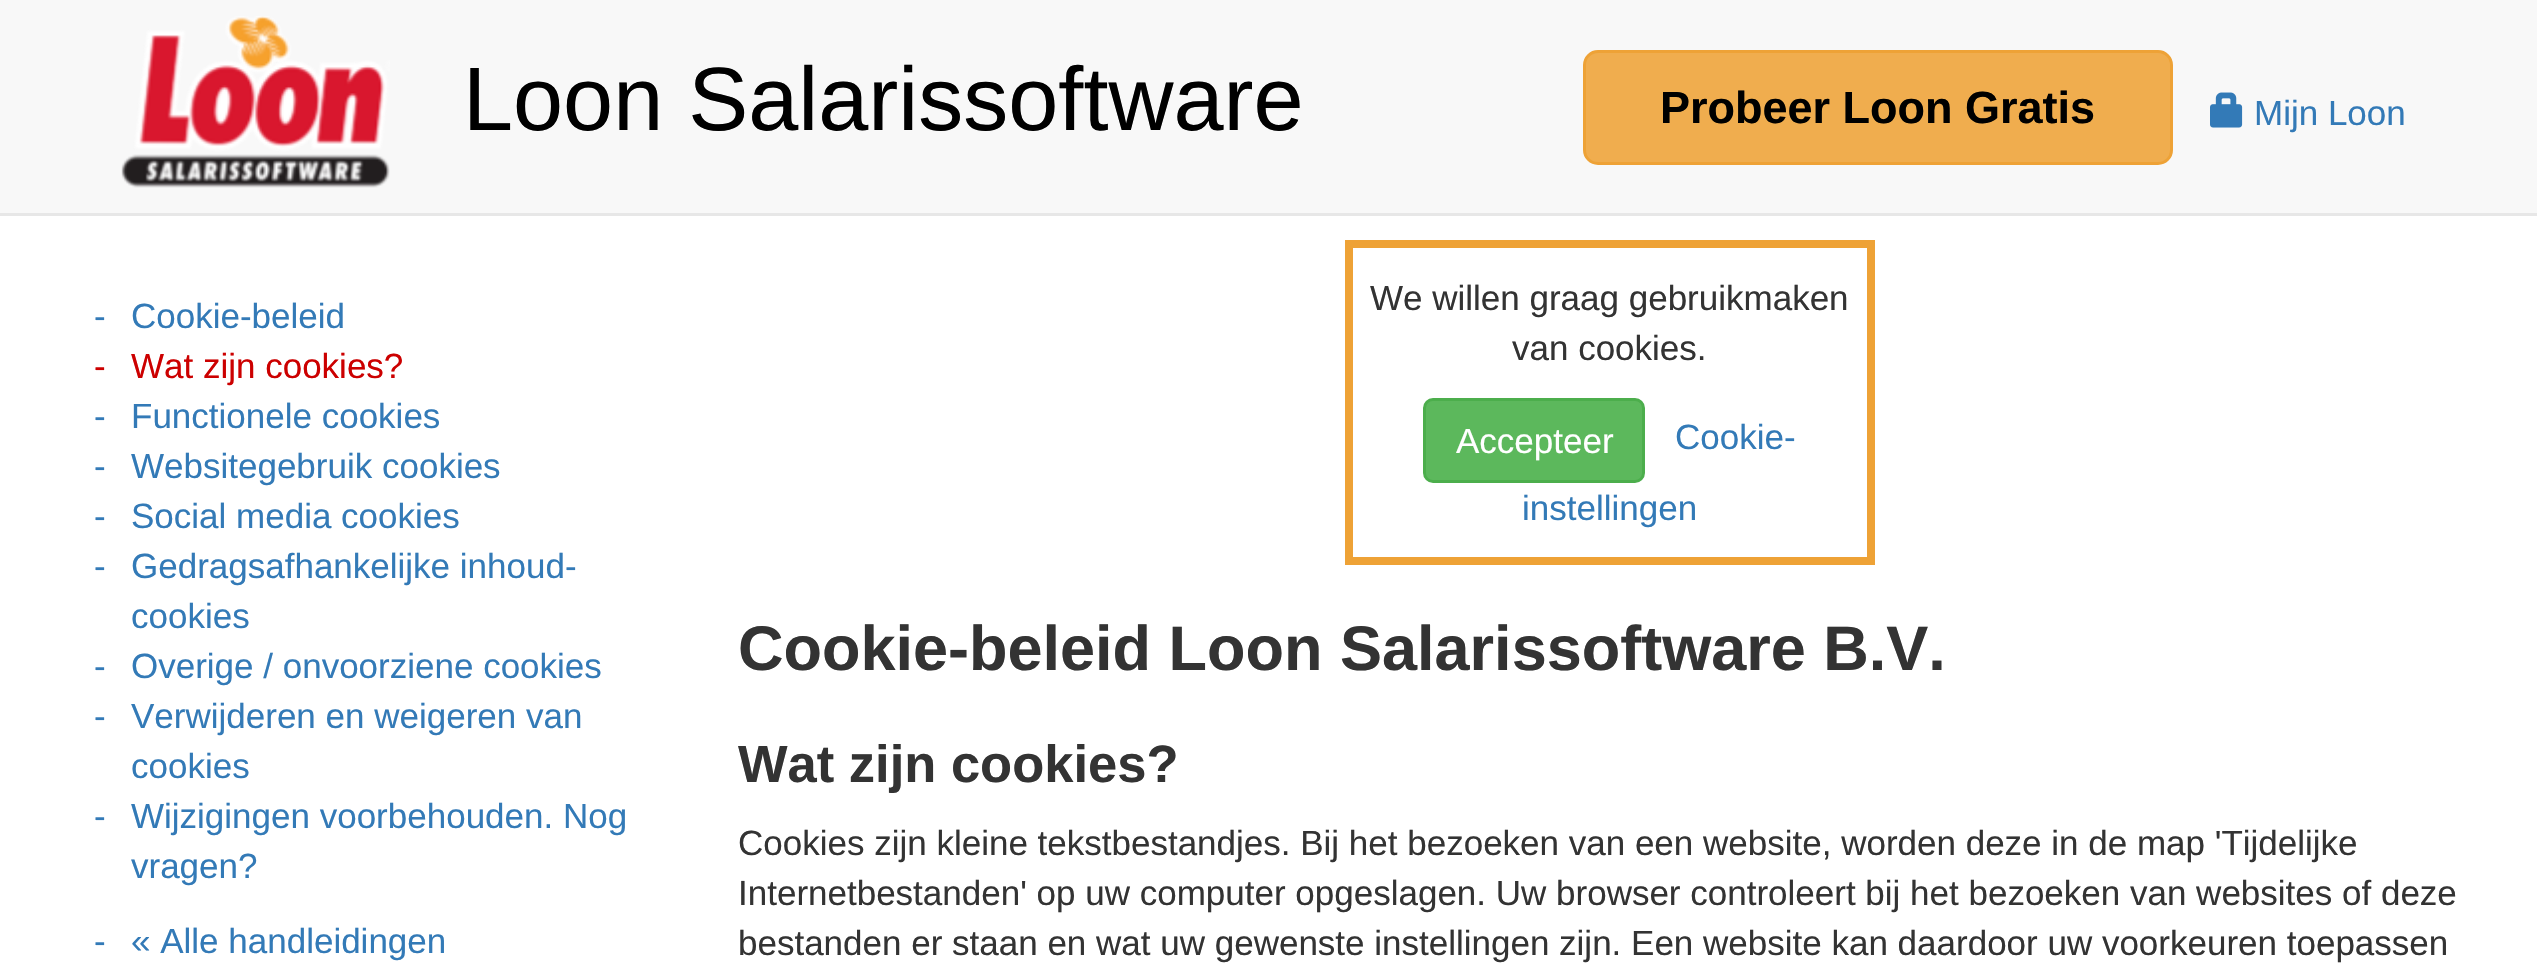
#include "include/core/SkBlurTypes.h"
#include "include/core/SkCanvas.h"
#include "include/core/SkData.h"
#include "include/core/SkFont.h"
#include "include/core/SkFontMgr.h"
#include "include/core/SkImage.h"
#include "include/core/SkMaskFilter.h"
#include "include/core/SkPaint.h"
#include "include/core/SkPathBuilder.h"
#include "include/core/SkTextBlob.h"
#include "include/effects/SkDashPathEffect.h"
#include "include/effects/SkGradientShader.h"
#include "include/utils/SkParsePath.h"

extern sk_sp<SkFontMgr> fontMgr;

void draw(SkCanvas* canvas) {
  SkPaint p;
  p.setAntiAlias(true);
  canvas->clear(SK_ColorWHITE);
  p.setColor(SkColorSetRGB(248, 248, 248));
  canvas->drawRect(SkRect::MakeLTRB(0, 0, 2537, 213), p);
  p.setColor(SkColorSetRGB(231, 231, 231));
  canvas->drawRect(SkRect::MakeLTRB(0, 213, 2537, 216), p);
  canvas->drawImageRect(SkImages::DeferredFromEncodedData(SkData::MakeFromFileName("images/1.png")), SkRect::MakeLTRB(121, 16, 390, 188), SkSamplingOptions());
  p.setColor(SkColorSetRGB(240, 173, 78));
  canvas->drawRoundRect(SkRect::MakeLTRB(1584.5f, 51.5f, 2171.5f, 163.5f), 13.5f, 13.5f, p);
  p.setStyle(SkPaint::kStroke_Style);
  p.setStrokeWidth(3);
  p.setColor(SkColorSetRGB(238, 162, 54));
  canvas->drawRoundRect(SkRect::MakeLTRB(1584.5f, 51.5f, 2171.5f, 163.5f), 13.5f, 13.5f, p);
  canvas->drawImageRect(SkImages::DeferredFromEncodedData(SkData::MakeFromFileName("images/2.png")), SkRect::MakeLTRB(2210, 92, 2243, 128), SkSamplingOptions());
  p.setStrokeWidth(8);
  canvas->drawRect(SkRect::MakeLTRB(1349, 244, 1871, 561), p);
  p.setStyle(SkPaint::kFill_Style);
  p.setColor(SkColorSetRGB(92, 184, 92));
  canvas->drawRoundRect(SkRect::MakeLTRB(1424.5f, 399.5f, 1643.5f, 481.5f), 8.5f, 8.5f, p);
  p.setStyle(SkPaint::kStroke_Style);
  p.setStrokeWidth(3);
  p.setColor(SkColorSetRGB(76, 174, 76));
  canvas->drawRoundRect(SkRect::MakeLTRB(1424.5f, 399.5f, 1643.5f, 481.5f), 8.5f, 8.5f, p);
  SkFont font1(fontMgr->matchFamilyStyle("Liberation Sans", SkFontStyle::Normal()), 90);
  font1.setSubpixel(true);
  p.setStyle(SkPaint::kFill_Style);
  p.setColor(SK_ColorBLACK);
  canvas->drawString("Loon Salarissoftware", 463, 130, font1, p);
  SkFont font2(fontMgr->matchFamilyStyle("Liberation Sans", SkFontStyle::Bold()), 45);
  font2.setSubpixel(true);
  canvas->drawString("Probeer Loon Gratis", 1660, 123, font2, p);
  SkFont font3(fontMgr->matchFamilyStyle("Liberation Sans", SkFontStyle::Normal()), 35);
  font3.setSubpixel(true);
  p.setColor(SkColorSetRGB(51, 122, 183));
  canvas->drawString("Mijn Loon", 2254, 125, font3, p);
  canvas->drawString("-", 94, 328, font3, p);
  canvas->drawString("Cookie-beleid", 131, 328, font3, p);
  p.setColor(SkColorSetRGB(204, 0, 0));
  canvas->drawString("-", 94, 378, font3, p);
  canvas->drawString("Wat zijn cookies?", 131, 378, font3, p);
  p.setColor(SkColorSetRGB(51, 122, 183));
  canvas->drawString("-", 94, 428, font3, p);
  canvas->drawString("Functionele cookies", 131, 428, font3, p);
  canvas->drawString("-", 94, 478, font3, p);
  canvas->drawString("Websitegebruik cookies", 131, 478, font3, p);
  canvas->drawString("-", 94, 528, font3, p);
  canvas->drawString("Social media cookies", 131, 528, font3, p);
  canvas->drawString("-", 94, 578, font3, p);
  canvas->drawString("Gedragsafhankelijke inhoud-", 131, 578, font3, p);
  canvas->drawString("cookies", 131, 628, font3, p);
  canvas->drawString("-", 94, 678, font3, p);
  canvas->drawString("Overige / onvoorziene cookies", 131, 678, font3, p);
  canvas->drawString("-", 94, 728, font3, p);
  canvas->drawString("Verwijderen en weigeren van", 131, 728, font3, p);
  canvas->drawString("cookies", 131, 778, font3, p);
  canvas->drawString("-", 94, 828, font3, p);
  canvas->drawString("Wijzigingen voorbehouden. Nog", 131, 828, font3, p);
  canvas->drawString("vragen?", 131, 878, font3, p);
  canvas->drawString("-", 94, 953, font3, p);
  canvas->drawString("« Alle handleidingen", 131, 953, font3, p);
  p.setColor(SkColorSetRGB(51, 51, 51));
  canvas->drawString("We willen graag gebruikmaken", 1370, 310, font3, p);
  canvas->drawString("van cookies.", 1512, 360, font3, p);
  p.setColor(SK_ColorWHITE);
  canvas->drawString("Accepteer", 1456, 453, font3, p);
  p.setColor(SkColorSetRGB(51, 122, 183));
  canvas->drawString("Cookie-", 1675, 449, font3, p);
  canvas->drawString("instellingen", 1522, 520, font3, p);
  SkFont font4(fontMgr->matchFamilyStyle("Liberation Sans", SkFontStyle::Bold()), 63);
  font4.setSubpixel(true);
  p.setColor(SkColorSetRGB(51, 51, 51));
  canvas->drawString("Cookie-beleid Loon Salarissoftware B.V.", 738, 670, font4, p);
  SkFont font5(fontMgr->matchFamilyStyle("Liberation Sans", SkFontStyle::Bold()), 52.5f);
  font5.setSubpixel(true);
  canvas->drawString("Wat zijn cookies?", 738, 782, font5, p);
  canvas->drawString("Cookies zijn kleine tekstbestandjes. Bij het bezoeken van een website, worden deze in de map 'Tijdelijke", 738, 855, font3, p);
  canvas->drawString("Internetbestanden' op uw computer opgeslagen. Uw browser controleert bij het bezoeken van websites of deze", 738, 905, font3, p);
  canvas->drawString("bestanden er staan en wat uw gewenste instellingen zijn. Een website kan daardoor uw voorkeuren toepassen", 738, 955, font3, p);
}
